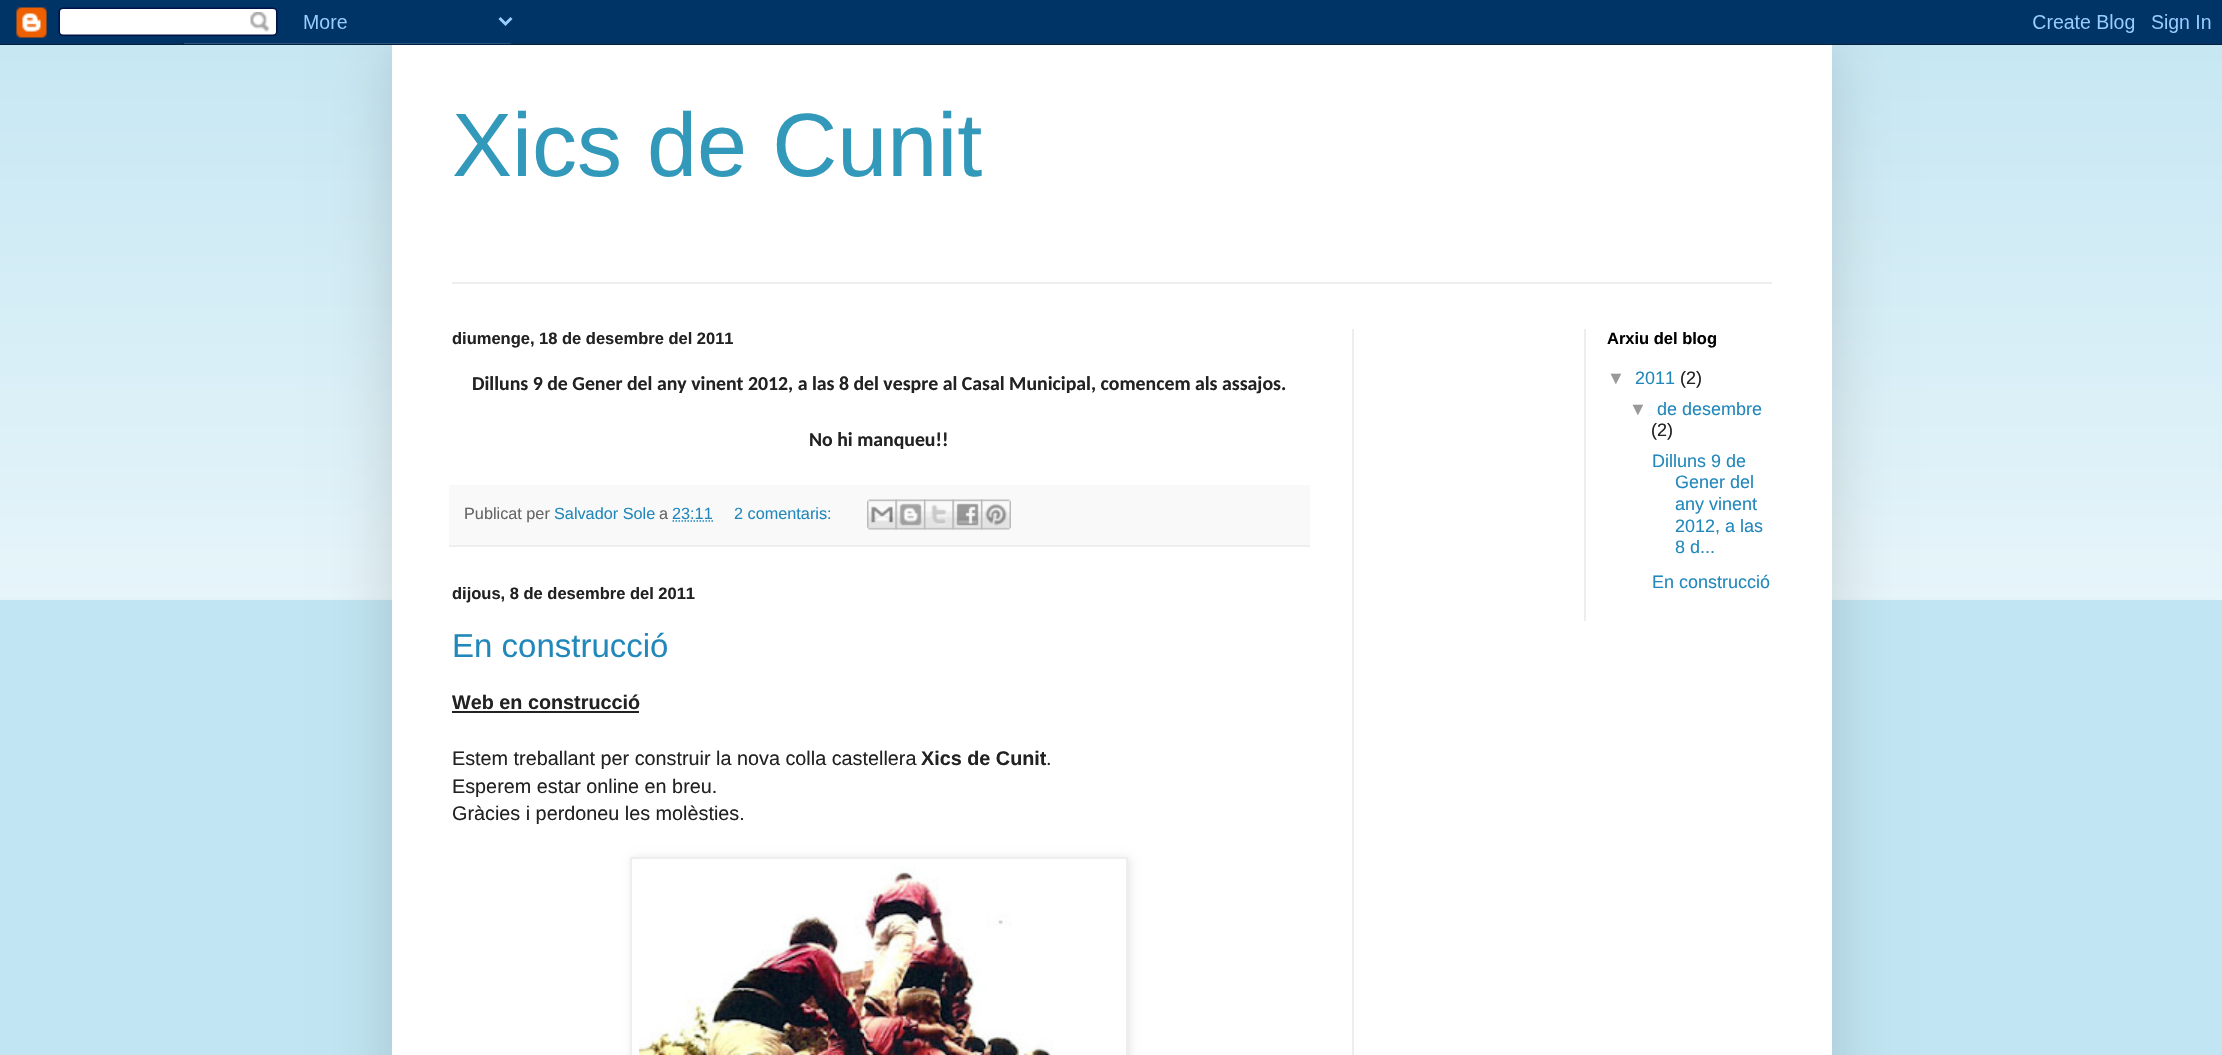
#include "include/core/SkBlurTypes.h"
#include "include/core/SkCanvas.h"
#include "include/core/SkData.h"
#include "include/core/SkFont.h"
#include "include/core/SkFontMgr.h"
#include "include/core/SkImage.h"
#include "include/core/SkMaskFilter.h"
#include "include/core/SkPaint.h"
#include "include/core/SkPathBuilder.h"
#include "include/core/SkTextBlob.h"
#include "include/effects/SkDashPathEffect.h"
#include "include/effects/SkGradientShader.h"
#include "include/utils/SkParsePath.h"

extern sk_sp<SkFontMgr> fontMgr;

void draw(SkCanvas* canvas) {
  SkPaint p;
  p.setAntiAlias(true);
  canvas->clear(SkColorSetRGB(193, 229, 242));
  canvas->drawImageRect(SkImages::DeferredFromEncodedData(SkData::MakeFromFileName("images/2.png")), SkRect::MakeLTRB(0, 43, 2222, 600), SkSamplingOptions());
  p.setColor(SkColorSetARGB(38, 0, 0, 0));
  p.setMaskFilter(SkMaskFilter::MakeBlur(kNormal_SkBlurStyle, 30));
  canvas->drawRect(SkRect::MakeLTRB(392, 45, 1832, 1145), p);
  p.setMaskFilter(nullptr);
  canvas->drawImageRect(SkImages::DeferredFromEncodedData(SkData::MakeFromFileName("images/1.png")), SkRect::MakeLTRB(0, 0, 2222, 45), SkSamplingOptions());
  p.setColor(SK_ColorWHITE);
  canvas->drawRect(SkRect::MakeLTRB(392, 45, 1832, 1055), p);
  p.setColor(SkColorSetRGB(238, 238, 238));
  canvas->drawRect(SkRect::MakeLTRB(452, 282, 1772, 284), p);
  canvas->drawRect(SkRect::MakeLTRB(1352, 329, 1354, 1055), p);
  p.setColor(SkColorSetRGB(249, 249, 249));
  canvas->drawRect(SkRect::MakeLTRB(449, 485, 1310, 545), p);
  p.setColor(SkColorSetRGB(238, 238, 238));
  canvas->drawRect(SkRect::MakeLTRB(449, 545, 1310, 547), p);
  p.setStyle(SkPaint::kStroke_Style);
  p.setStrokeWidth(1.5f);
  p.setColor(SkColorSetRGB(34, 136, 187));
  p.setPathEffect(SkDashPathEffect::Make({{1.5f, 1.5f}}, 0));
  canvas->drawPath(SkPathBuilder().moveTo(672.5f, 521).lineTo(713, 521).detach(), p);
  p.setPathEffect(nullptr);
  canvas->drawImageRect(SkImages::DeferredFromEncodedData(SkData::MakeFromFileName("images/3.png")), SkRect::MakeLTRB(867, 499, 897, 530), SkSamplingOptions());
  canvas->drawImageRect(SkImages::DeferredFromEncodedData(SkData::MakeFromFileName("images/4.png")), SkRect::MakeLTRB(895, 499, 926, 530), SkSamplingOptions());
  canvas->drawImageRect(SkImages::DeferredFromEncodedData(SkData::MakeFromFileName("images/5.png")), SkRect::MakeLTRB(924, 499, 954, 530), SkSamplingOptions());
  canvas->drawImageRect(SkImages::DeferredFromEncodedData(SkData::MakeFromFileName("images/6.png")), SkRect::MakeLTRB(952, 499, 983, 530), SkSamplingOptions());
  canvas->drawImageRect(SkImages::DeferredFromEncodedData(SkData::MakeFromFileName("images/7.png")), SkRect::MakeLTRB(981, 499, 1011, 530), SkSamplingOptions());
  p.setStyle(SkPaint::kFill_Style);
  p.setColor(SkColorSetRGB(34, 34, 34));
  canvas->drawRect(SkRect::MakeLTRB(452, 711, 639, 713), p);
  canvas->save();
  canvas->clipPath(SkPathBuilder(SkPathFillType::kEvenOdd).moveTo(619, 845).lineTo(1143, 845).lineTo(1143, 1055).lineTo(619, 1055).close().moveTo(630, 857).lineTo(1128, 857).lineTo(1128, 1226).lineTo(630, 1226).close().detach(), true);
  p.setColor(SkColorSetARGB(26, 0, 0, 0));
  p.setMaskFilter(SkMaskFilter::MakeBlur(kNormal_SkBlurStyle, 4));
  canvas->drawRect(SkRect::MakeLTRB(632, 858, 1130, 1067), p);
  p.setMaskFilter(nullptr);
  canvas->restore();
  p.setStyle(SkPaint::kStroke_Style);
  p.setStrokeWidth(2);
  p.setColor(SkColorSetRGB(238, 238, 238));
  canvas->drawRect(SkRect::MakeLTRB(631, 858, 1127, 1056), p);
  canvas->drawImageRect(SkImages::DeferredFromEncodedData(SkData::MakeFromFileName("images/8.png")), SkRect::MakeLTRB(639, 866, 1053, 1055), SkSamplingOptions());
  p.setStyle(SkPaint::kFill_Style);
  canvas->drawRect(SkRect::MakeLTRB(1584, 329, 1586, 621), p);
  SkFont font1(fontMgr->matchFamilyStyle("Liberation Sans", SkFontStyle::Normal()), 90);
  font1.setSubpixel(true);
  p.setColor(SkColorSetRGB(51, 153, 187));
  canvas->drawString("Xics de Cunit", 452, 176, font1, p);
  SkFont font2(fontMgr->matchFamilyStyle("Liberation Sans", SkFontStyle::Bold()), 16.5f);
  font2.setSubpixel(true);
  p.setColor(SkColorSetRGB(34, 34, 34));
  canvas->drawString("diumenge, 18 de desembre del 2011", 452, 344, font2, p);
  SkFont font3(fontMgr->matchFamilyStyle("Carlito", SkFontStyle::Bold()), 19.8f);
  font3.setSubpixel(true);
  canvas->drawString("Dilluns 9 de Gener del any vinent 2012, a las 8 del vespre al Casal Municipal, comencem als assajos.", 472, 390, font3, p);
  canvas->drawString("No hi manqueu!!", 809, 446, font3, p);
  SkFont font4(fontMgr->matchFamilyStyle("Liberation Sans", SkFontStyle::Normal()), 16.25f);
  font4.setSubpixel(true);
  p.setColor(SkColorSetRGB(102, 102, 102));
  canvas->drawString("Publicat per", 464, 519, font4, p);
  p.setColor(SkColorSetRGB(34, 136, 187));
  canvas->drawString("Salvador Sole", 554, 519, font4, p);
  p.setColor(SkColorSetRGB(102, 102, 102));
  canvas->drawString("a", 659, 519, font4, p);
  p.setColor(SkColorSetRGB(34, 136, 187));
  canvas->drawString("23:11", 672, 519, font4, p);
  canvas->drawString("2 comentaris:", 734, 519, font4, p);
  p.setColor(SkColorSetRGB(34, 34, 34));
  canvas->drawString("dijous, 8 de desembre del 2011", 452, 599, font2, p);
  SkFont font5(fontMgr->matchFamilyStyle("Liberation Sans", SkFontStyle::Normal()), 33);
  font5.setSubpixel(true);
  p.setColor(SkColorSetRGB(34, 136, 187));
  canvas->drawString("En construcció", 452, 657, font5, p);
  SkFont font6(fontMgr->matchFamilyStyle("Liberation Sans", SkFontStyle::Bold()), 19.8f);
  font6.setSubpixel(true);
  p.setColor(SkColorSetRGB(34, 34, 34));
  canvas->drawString("Web en construcció", 452, 709, font6, p);
  SkFont font7(fontMgr->matchFamilyStyle("Liberation Sans", SkFontStyle::Normal()), 19.8f);
  font7.setSubpixel(true);
  canvas->drawString("Estem treballant per construir la nova colla castellera", 452, 765, font7, p);
  canvas->drawString("Xics de Cunit", 921, 765, font6, p);
  canvas->drawString(".", 1046, 765, font7, p);
  canvas->drawString("Esperem estar online en breu.", 452, 793, font7, p);
  canvas->drawString("Gràcies i perdoneu les molèsties.", 452, 820, font7, p);
  p.setColor(SK_ColorBLACK);
  canvas->drawString("Arxiu del blog", 1607, 344, font2, p);
  SkFont font8(fontMgr->matchFamilyStyle("Liberation Sans", SkFontStyle::Normal()), 18);
  font8.setSubpixel(true);
  p.setColor(SkColorSetRGB(153, 153, 153));
  canvas->drawString("▼", 1607, 384, font8, p);
  p.setColor(SkColorSetRGB(34, 136, 187));
  canvas->drawString("2011", 1635, 384, font8, p);
  p.setColor(SkColorSetRGB(34, 34, 34));
  canvas->drawString("(2)", 1680, 384, font8, p);
  p.setColor(SkColorSetRGB(153, 153, 153));
  canvas->drawString("▼", 1629, 415, font8, p);
  p.setColor(SkColorSetRGB(34, 136, 187));
  canvas->drawString("de desembre", 1657, 415, font8, p);
  p.setColor(SkColorSetRGB(34, 34, 34));
  canvas->drawString("(2)", 1651, 436, font8, p);
  p.setColor(SkColorSetRGB(34, 136, 187));
  canvas->drawString("Dilluns 9 de", 1652, 467, font8, p);
  canvas->drawString("Gener del", 1675, 488, font8, p);
  canvas->drawString("any vinent", 1675, 510, font8, p);
  canvas->drawString("2012, a las", 1675, 532, font8, p);
  canvas->drawString("8 d...", 1675, 553, font8, p);
  canvas->drawString("En construcció", 1652, 588, font8, p);
}
